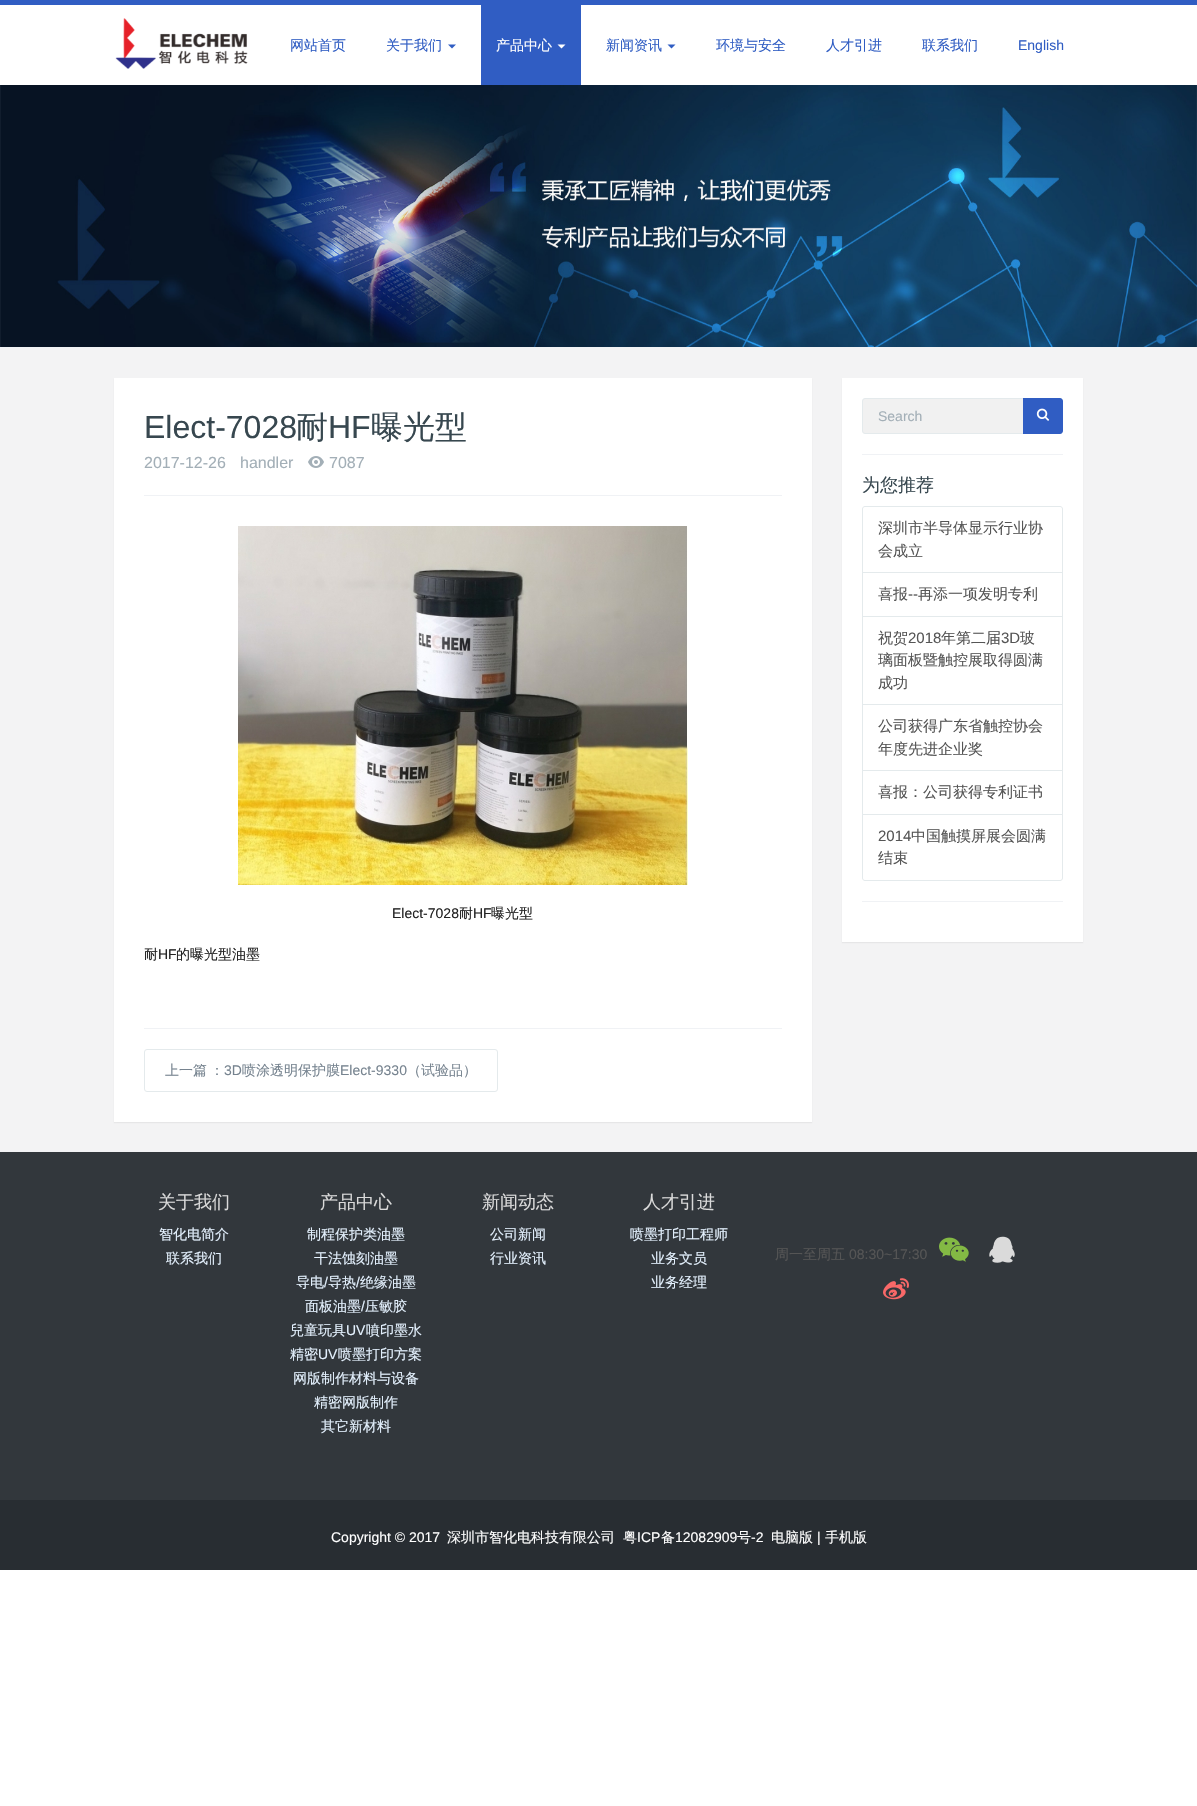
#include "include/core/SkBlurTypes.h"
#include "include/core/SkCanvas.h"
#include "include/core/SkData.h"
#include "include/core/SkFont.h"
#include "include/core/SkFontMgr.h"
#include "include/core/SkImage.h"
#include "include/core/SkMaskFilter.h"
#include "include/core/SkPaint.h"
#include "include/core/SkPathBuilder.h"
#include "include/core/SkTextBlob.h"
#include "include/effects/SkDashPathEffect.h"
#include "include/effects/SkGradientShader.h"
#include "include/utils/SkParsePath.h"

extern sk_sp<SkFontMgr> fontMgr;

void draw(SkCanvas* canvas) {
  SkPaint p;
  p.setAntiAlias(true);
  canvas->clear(SK_ColorWHITE);
  p.setColor(SkColorSetRGB(48, 93, 195));
  canvas->drawRect(SkRect::MakeLTRB(0, 0, 1197, 5), p);
  canvas->drawImageRect(SkImages::DeferredFromEncodedData(SkData::MakeFromFileName("images/1.png")), SkRect::MakeLTRB(115, 18, 248, 69), SkSamplingOptions());
  canvas->drawPath(SkPathBuilder().moveTo(448, 44.5f).lineTo(456, 44.5f).lineTo(452, 48.5f).close().detach(), p);
  canvas->drawRect(SkRect::MakeLTRB(481, 5, 581, 85), p);
  p.setColor(SK_ColorWHITE);
  canvas->drawPath(SkPathBuilder().moveTo(557.5f, 44.5f).lineTo(565.5f, 44.5f).lineTo(561.5f, 48.5f).close().detach(), p);
  p.setColor(SkColorSetRGB(48, 93, 195));
  canvas->drawPath(SkPathBuilder().moveTo(667.5f, 44.5f).lineTo(675.5f, 44.5f).lineTo(671.5f, 48.5f).close().detach(), p);
  canvas->drawImageRect(SkImages::DeferredFromEncodedData(SkData::MakeFromFileName("images/2.png")), SkRect::MakeLTRB(0, 85, 1197, 347), SkSamplingOptions());
  p.setColor(SkColorSetRGB(243, 243, 244));
  canvas->drawRect(SkRect::MakeLTRB(0, 348, 1197, 1152), p);
  p.setColor(SkColorSetRGB(240, 242, 245));
  canvas->drawRect(SkRect::MakeLTRB(0, 347, 1197, 348), p);
  p.setColor(SkColorSetARGB(13, 0, 0, 0));
  p.setMaskFilter(SkMaskFilter::MakeBlur(kNormal_SkBlurStyle, 0.5f));
  canvas->drawRect(SkRect::MakeLTRB(114, 379, 812, 1123), p);
  p.setMaskFilter(nullptr);
  p.setColor(SK_ColorWHITE);
  canvas->drawRect(SkRect::MakeLTRB(114, 378, 812, 1122), p);
  p.setColor(SkColorSetRGB(240, 242, 245));
  canvas->drawRect(SkRect::MakeLTRB(144, 495, 782, 496), p);
  canvas->drawImageRect(SkImages::DeferredFromEncodedData(SkData::MakeFromFileName("images/3.png")), SkRect::MakeLTRB(308, 456, 324, 468), SkSamplingOptions());
  canvas->drawImageRect(SkImages::DeferredFromEncodedData(SkData::MakeFromFileName("images/4.png")), SkRect::MakeLTRB(238, 526, 688, 885), SkSamplingOptions());
  canvas->drawRect(SkRect::MakeLTRB(144, 1028, 782, 1029), p);
  p.setStyle(SkPaint::kStroke_Style);
  p.setStrokeWidth(1);
  p.setColor(SkColorSetRGB(228, 234, 236));
  canvas->drawRoundRect(SkRect::MakeLTRB(144.5f, 1049.5f, 497.5f, 1091.5f), 2.5f, 2.5f, p);
  p.setStyle(SkPaint::kFill_Style);
  p.setColor(SkColorSetARGB(13, 0, 0, 0));
  p.setMaskFilter(SkMaskFilter::MakeBlur(kNormal_SkBlurStyle, 0.5f));
  canvas->drawRect(SkRect::MakeLTRB(842, 379, 1083, 943), p);
  p.setMaskFilter(nullptr);
  p.setColor(SK_ColorWHITE);
  canvas->drawRect(SkRect::MakeLTRB(842, 378, 1083, 942), p);
  p.setColor(SkColorSetRGB(241, 241, 241));
  canvas->drawRoundRect(SkRect::MakeLTRB(862.5f, 398.5f, 1062.5f, 433.5f), 2.5f, 2.5f, p);
  p.setStyle(SkPaint::kStroke_Style);
  p.setColor(SkColorSetRGB(228, 234, 236));
  canvas->drawRoundRect(SkRect::MakeLTRB(862.5f, 398.5f, 1062.5f, 433.5f), 2.5f, 2.5f, p);
  p.setStyle(SkPaint::kFill_Style);
  p.setColor(SkColorSetRGB(48, 93, 195));
  canvas->drawPath(SkPathBuilder().moveTo(1023, 398).lineTo(1060, 398).cubicTo(1061.5f, 398, 1063, 399.5f, 1063, 401).lineTo(1063, 431).cubicTo(1063, 432.5f, 1061.5f, 434, 1060, 434).lineTo(1023, 434).close().detach(), p);
  canvas->drawImageRect(SkImages::DeferredFromEncodedData(SkData::MakeFromFileName("images/5.png")), SkRect::MakeLTRB(1036, 408, 1050, 421), SkSamplingOptions());
  p.setColor(SkColorSetRGB(240, 242, 245));
  canvas->drawRect(SkRect::MakeLTRB(862, 454, 1063, 455), p);
  canvas->drawRect(SkRect::MakeLTRB(862, 901, 1063, 902), p);
  p.setStyle(SkPaint::kStroke_Style);
  p.setColor(SkColorSetRGB(228, 234, 236));
  canvas->drawPath(SkPathBuilder().moveTo(865, 506.5f).lineTo(1060, 506.5f).cubicTo(1061.5f, 506.5f, 1062.5f, 507.5f, 1062.5f, 509).lineTo(1062.5f, 572.5f).lineTo(862.5f, 572.5f).lineTo(862.5f, 509).cubicTo(862.5f, 507.5f, 863.5f, 506.5f, 865, 506.5f).close().detach(), p);
  canvas->drawRect(SkRect::MakeLTRB(862.5f, 572.5f, 1062.5f, 616.5f), p);
  canvas->drawRect(SkRect::MakeLTRB(862.5f, 616.5f, 1062.5f, 704.5f), p);
  canvas->drawRect(SkRect::MakeLTRB(862.5f, 704.5f, 1062.5f, 770.5f), p);
  canvas->drawRect(SkRect::MakeLTRB(862.5f, 770.5f, 1062.5f, 814.5f), p);
  p.setStyle(SkPaint::kFill_Style);
  p.setColor(SK_ColorWHITE);
  canvas->drawPath(SkPathBuilder().moveTo(862.5f, 814.5f).lineTo(1062.5f, 814.5f).lineTo(1062.5f, 878).cubicTo(1062.5f, 879.5f, 1061.5f, 880.5f, 1060, 880.5f).lineTo(865, 880.5f).cubicTo(863.5f, 880.5f, 862.5f, 879.5f, 862.5f, 878).close().detach(), p);
  p.setStyle(SkPaint::kStroke_Style);
  p.setColor(SkColorSetRGB(228, 234, 236));
  canvas->drawPath(SkPathBuilder().moveTo(862.5f, 814.5f).lineTo(1062.5f, 814.5f).lineTo(1062.5f, 878).cubicTo(1062.5f, 879.5f, 1061.5f, 880.5f, 1060, 880.5f).lineTo(865, 880.5f).cubicTo(863.5f, 880.5f, 862.5f, 879.5f, 862.5f, 878).close().detach(), p);
  p.setStyle(SkPaint::kFill_Style);
  p.setColor(SkColorSetRGB(50, 55, 60));
  canvas->drawRect(SkRect::MakeLTRB(0, 1152, 1197, 1500), p);
  canvas->drawImageRect(SkImages::DeferredFromEncodedData(SkData::MakeFromFileName("images/6.png")), SkRect::MakeLTRB(939, 1237, 969, 1262), SkSamplingOptions());
  canvas->drawImageRect(SkImages::DeferredFromEncodedData(SkData::MakeFromFileName("images/7.png")), SkRect::MakeLTRB(989, 1236, 1015, 1263), SkSamplingOptions());
  canvas->drawImageRect(SkImages::DeferredFromEncodedData(SkData::MakeFromFileName("images/8.png")), SkRect::MakeLTRB(883, 1278, 909, 1300), SkSamplingOptions());
  p.setColor(SkColorSetRGB(40, 45, 50));
  canvas->drawRect(SkRect::MakeLTRB(0, 1500, 1197, 1570), p);
  SkFont font1(fontMgr->matchFamilyStyle("WenQuanYi Zen Hei", SkFontStyle(500, SkFontStyle::kNormal_Width, SkFontStyle::kUpright_Slant)), 14);
  font1.setSubpixel(true);
  p.setColor(SkColorSetRGB(48, 93, 195));
  canvas->drawString("网站首页", 290, 50, font1, p);
  canvas->drawString("关于我们", 386, 50, font1, p);
  p.setColor(SK_ColorWHITE);
  canvas->drawString("产品中心", 496, 50, font1, p);
  p.setColor(SkColorSetRGB(48, 93, 195));
  canvas->drawString("新闻资讯", 606, 50, font1, p);
  canvas->drawString("环境与安全", 716, 50, font1, p);
  canvas->drawString("人才引进", 826, 50, font1, p);
  canvas->drawString("联系我们", 922, 50, font1, p);
  SkFont font2(fontMgr->matchFamilyStyle("Liberation Sans", SkFontStyle::Normal()), 14);
  font2.setSubpixel(true);
  canvas->drawString("English", 1018, 50, font2, p);
  SkFont font3(fontMgr->matchFamilyStyle("Liberation Sans", SkFontStyle::Normal()), 32);
  font3.setSubpixel(true);
  p.setColor(SkColorSetRGB(55, 71, 79));
  canvas->drawString("Elect-7028", 144, 438, font3, p);
  SkFont font4(fontMgr->matchFamilyStyle("WenQuanYi Zen Hei", SkFontStyle(500, SkFontStyle::kNormal_Width, SkFontStyle::kUpright_Slant)), 32);
  font4.setSubpixel(true);
  canvas->drawString("耐", 296, 438, font4, p);
  canvas->drawString("HF", 328, 438, font3, p);
  canvas->drawString("曝光型", 371, 438, font4, p);
  SkFont font5(fontMgr->matchFamilyStyle("Liberation Sans", SkFontStyle::Normal()), 16);
  font5.setSubpixel(true);
  p.setColor(SkColorSetRGB(163, 175, 183));
  canvas->drawString("2017-12-26", 144, 468, font5, p);
  canvas->drawString("handler", 240, 468, font5, p);
  canvas->drawString("7087", 329, 468, font5, p);
  p.setColor(SkColorSetRGB(34, 34, 34));
  canvas->drawString("Elect-7028", 392, 918, font2, p);
  canvas->drawString("耐", 459, 918, font1, p);
  canvas->drawString("HF", 473, 918, font2, p);
  canvas->drawString("曝光型", 491, 918, font1, p);
  canvas->drawString("耐", 144, 959, font1, p);
  canvas->drawString("HF", 158, 959, font2, p);
  canvas->drawString("的曝光型油墨", 176, 959, font1, p);
  p.setColor(SkColorSetRGB(118, 131, 143));
  canvas->drawString("上一篇", 165, 1075, font1, p);
  canvas->drawString("：", 210, 1075, font1, p);
  canvas->drawString("3D", 224, 1075, font2, p);
  canvas->drawString("喷涂透明保护膜", 242, 1075, font1, p);
  canvas->drawString("Elect-9330", 340, 1075, font2, p);
  canvas->drawString("（试验品）", 407, 1075, font1, p);
  p.setColor(SkColorSetRGB(163, 175, 183));
  canvas->drawString("Search", 878, 421, font2, p);
  SkFont font6(fontMgr->matchFamilyStyle("WenQuanYi Zen Hei", SkFontStyle(500, SkFontStyle::kNormal_Width, SkFontStyle::kUpright_Slant)), 18);
  font6.setSubpixel(true);
  p.setColor(SkColorSetRGB(55, 71, 79));
  canvas->drawString("为您推荐", 862, 491, font6, p);
  SkFont font7(fontMgr->matchFamilyStyle("WenQuanYi Zen Hei", SkFontStyle(500, SkFontStyle::kNormal_Width, SkFontStyle::kUpright_Slant)), 15);
  font7.setSubpixel(true);
  p.setColor(SkColorSetRGB(85, 85, 85));
  canvas->drawString("深圳市半导体显示行业协", 878, 533, font7, p);
  canvas->drawString("会成立", 878, 556, font7, p);
  canvas->drawString("喜报", 878, 599, font7, p);
  SkFont font8(fontMgr->matchFamilyStyle("Liberation Sans", SkFontStyle::Normal()), 15);
  font8.setSubpixel(true);
  canvas->drawString("--", 908, 599, font8, p);
  canvas->drawString("再添一项发明专利", 918, 599, font7, p);
  canvas->drawString("祝贺", 878, 643, font7, p);
  canvas->drawString("2018", 908, 643, font8, p);
  canvas->drawString("年第二届", 941, 643, font7, p);
  canvas->drawString("3D", 1001, 643, font8, p);
  canvas->drawString("玻", 1020, 643, font7, p);
  canvas->drawString("璃面板暨触控展取得圆满", 878, 665, font7, p);
  canvas->drawString("成功", 878, 688, font7, p);
  canvas->drawString("公司获得广东省触控协会", 878, 731, font7, p);
  canvas->drawString("年度先进企业奖", 878, 754, font7, p);
  canvas->drawString("喜报：公司获得专利证书", 878, 797, font7, p);
  canvas->drawString("2014", 878, 841, font8, p);
  canvas->drawString("中国触摸屏展会圆满", 911, 841, font7, p);
  canvas->drawString("结束", 878, 863, font7, p);
  p.setColor(SkColorSetRGB(218, 218, 218));
  canvas->drawString("关于我们", 158, 1208, font6, p);
  p.setColor(SkColorSetRGB(228, 241, 254));
  canvas->drawString("智化电简介", 159, 1239, font1, p);
  canvas->drawString("联系我们", 166, 1263, font1, p);
  p.setColor(SkColorSetRGB(218, 218, 218));
  canvas->drawString("产品中心", 320, 1208, font6, p);
  p.setColor(SkColorSetRGB(228, 241, 254));
  canvas->drawString("制程保护类油墨", 307, 1239, font1, p);
  canvas->drawString("干法蚀刻油墨", 314, 1263, font1, p);
  canvas->drawString("导电", 296, 1287, font1, p);
  canvas->drawString("/", 324, 1287, font2, p);
  canvas->drawString("导热", 328, 1287, font1, p);
  canvas->drawString("/", 356, 1287, font2, p);
  canvas->drawString("绝缘油墨", 360, 1287, font1, p);
  canvas->drawString("面板油墨", 305, 1311, font1, p);
  canvas->drawString("/", 361, 1311, font2, p);
  canvas->drawString("压敏胶", 365, 1311, font1, p);
  canvas->drawString("兒童玩具", 290, 1335, font1, p);
  canvas->drawString("UV", 346, 1335, font2, p);
  canvas->drawString("噴印墨水", 366, 1335, font1, p);
  canvas->drawString("精密", 290, 1359, font1, p);
  canvas->drawString("UV", 318, 1359, font2, p);
  canvas->drawString("喷墨打印方案", 338, 1359, font1, p);
  canvas->drawString("网版制作材料与设备", 293, 1383, font1, p);
  canvas->drawString("精密网版制作", 314, 1407, font1, p);
  canvas->drawString("其它新材料", 321, 1431, font1, p);
  p.setColor(SkColorSetRGB(218, 218, 218));
  canvas->drawString("新闻动态", 482, 1208, font6, p);
  p.setColor(SkColorSetRGB(228, 241, 254));
  canvas->drawString("公司新闻", 490, 1239, font1, p);
  canvas->drawString("行业资讯", 490, 1263, font1, p);
  p.setColor(SkColorSetRGB(218, 218, 218));
  canvas->drawString("人才引进", 643, 1208, font6, p);
  p.setColor(SkColorSetRGB(228, 241, 254));
  canvas->drawString("喷墨打印工程师", 630, 1239, font1, p);
  canvas->drawString("业务文员", 651, 1263, font1, p);
  canvas->drawString("业务经理", 651, 1287, font1, p);
  p.setColor(SkColorSetRGB(85, 85, 85));
  canvas->drawString("周一至周五", 775, 1259, font1, p);
  canvas->drawString("08:30~17:30", 849, 1259, font2, p);
  p.setColor(SK_ColorWHITE);
  canvas->drawString("Copyright © 2017", 331, 1542, font2, p);
  canvas->drawString("深圳市智化电科技有限公司", 447, 1542, font1, p);
  canvas->drawString("粤", 623, 1542, font1, p);
  canvas->drawString("ICP", 637, 1542, font2, p);
  canvas->drawString("备", 661, 1542, font1, p);
  canvas->drawString("12082909", 675, 1542, font2, p);
  canvas->drawString("号", 737, 1542, font1, p);
  canvas->drawString("-2", 751, 1542, font2, p);
  canvas->drawString("电脑版", 771, 1542, font1, p);
  canvas->drawString("|", 817, 1542, font2, p);
  canvas->drawString("手机版", 825, 1542, font1, p);
}
